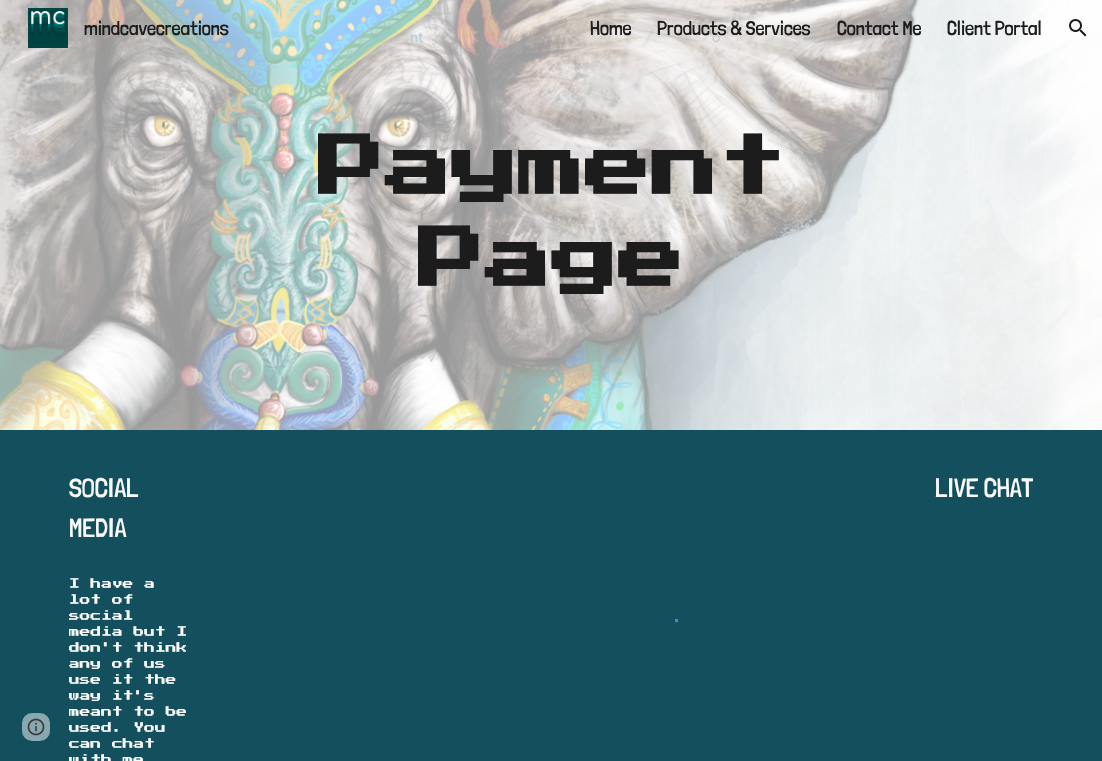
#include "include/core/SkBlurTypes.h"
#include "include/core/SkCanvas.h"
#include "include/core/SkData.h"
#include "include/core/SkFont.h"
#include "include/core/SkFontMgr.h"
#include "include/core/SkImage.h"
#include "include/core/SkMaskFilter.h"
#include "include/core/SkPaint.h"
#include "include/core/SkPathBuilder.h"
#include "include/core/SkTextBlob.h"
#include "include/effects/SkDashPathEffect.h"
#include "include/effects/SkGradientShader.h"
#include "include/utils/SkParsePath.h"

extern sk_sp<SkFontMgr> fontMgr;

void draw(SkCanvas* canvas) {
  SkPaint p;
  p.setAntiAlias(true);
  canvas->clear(SK_ColorWHITE);
  canvas->drawImageRect(SkImages::DeferredFromEncodedData(SkData::MakeFromFileName("images/3.png")), SkRect::MakeLTRB(0, 0, 1102, 430), SkSamplingOptions());
  canvas->drawImageRect(SkImages::DeferredFromEncodedData(SkData::MakeFromFileName("images/1.png")), SkRect::MakeLTRB(28, 8, 68, 48), SkSamplingOptions());
  canvas->drawImageRect(SkImages::DeferredFromEncodedData(SkData::MakeFromFileName("images/2.png")), SkRect::MakeLTRB(1069, 19, 1087, 37), SkSamplingOptions());
  p.setColor(SkColorSetRGB(19, 79, 92));
  canvas->drawRect(SkRect::MakeLTRB(0, 430, 1102, 761), p);
  p.setColor(SkColorSetRGB(137, 167, 174));
  canvas->drawRoundRect(SkRect::MakeLTRB(22, 713, 50, 741), 10, 10, p);
  canvas->drawImageRect(SkImages::DeferredFromEncodedData(SkData::MakeFromFileName("images/4.png")), SkRect::MakeLTRB(27, 718, 45, 736), SkSamplingOptions());
  canvas->save();
  canvas->clipRect(SkRect::MakeLTRB(663, 619, 677, 647));
  p.setStyle(SkPaint::kStroke_Style);
  p.setStrokeWidth(3);
  p.setColor(SkColorSetRGB(66, 132, 242));
  canvas->drawPath(SkPathBuilder().moveTo(675.5f, 620).cubicTo(692, 618.5f, 694, 643.5f, 678, 645).detach(), p);
  canvas->restore();
  canvas->save();
  canvas->clipRect(SkRect::MakeLTRB(675, 619, 678, 647));
  canvas->drawPath(SkPathBuilder().moveTo(668, 642).cubicTo(665, 639, 664, 634.5f, 664.5f, 630.5f).cubicTo(667.5f, 616, 689.5f, 618, 689.5f, 633).cubicTo(689.5f, 636.5f, 688, 639.5f, 686, 642).detach(), p);
  canvas->restore();
  canvas->save();
  canvas->clipRect(SkRect::MakeLTRB(677, 619, 691, 647));
  canvas->drawPath(SkPathBuilder().moveTo(675.5f, 645).cubicTo(659, 643.5f, 661.5f, 618.5f, 678, 620).moveTo(675.5f, 645).cubicTo(659, 643.5f, 661.5f, 618.5f, 678, 620).moveTo(675.5f, 645).cubicTo(659, 643.5f, 661.5f, 618.5f, 678, 620).moveTo(675.5f, 645).cubicTo(659, 643.5f, 661.5f, 618.5f, 678, 620).detach(), p);
  canvas->restore();
  SkFont font1(fontMgr->matchFamilyStyle("Londrina Solid", SkFontStyle(300, SkFontStyle::kNormal_Width, SkFontStyle::kUpright_Slant)), 20);
  font1.setSubpixel(true);
  p.setStyle(SkPaint::kFill_Style);
  p.setColor(SkColorSetRGB(28, 28, 28));
  canvas->drawString("mindcavecreations", 84, 35, font1, p);
  canvas->drawString("Home", 590, 35, font1, p);
  canvas->drawString("Products & Services", 657, 35, font1, p);
  canvas->drawString("Contact Me", 837, 35, font1, p);
  canvas->drawString("Client Portal", 947, 35, font1, p);
  SkFont font2(fontMgr->matchFamilyStyle("Press Start 2P", SkFontStyle::Bold()), 66.75f);
  font2.setSubpixel(true);
  canvas->drawString("Payment", 318, 202, font2, p);
  canvas->drawString("Page", 418, 294, font2, p);
  SkFont font3(fontMgr->matchFamilyStyle("Londrina Solid", SkFontStyle(300, SkFontStyle::kNormal_Width, SkFontStyle::kUpright_Slant)), 26.5f);
  font3.setSubpixel(true);
  p.setColor(SkColorSetRGB(249, 249, 249));
  canvas->drawString("SOCIAL", 69, 497, font3, p);
  canvas->drawString("MEDIA", 69, 537, font3, p);
  SkFont font4(fontMgr->matchFamilyStyle("Press Start 2P", SkFontStyle::Normal()), 10.75f);
  font4.setSubpixel(true);
  canvas->drawString("I have a", 69, 589, font4, p);
  canvas->drawString("lot of", 69, 605, font4, p);
  canvas->drawString("social", 69, 621, font4, p);
  canvas->drawString("media but I", 69, 637, font4, p);
  canvas->drawString("don't think", 69, 653, font4, p);
  canvas->drawString("any of us", 69, 669, font4, p);
  canvas->drawString("use it the", 69, 685, font4, p);
  canvas->drawString("way it's", 69, 701, font4, p);
  canvas->drawString("meant to be", 69, 717, font4, p);
  canvas->drawString("used. You", 69, 733, font4, p);
  canvas->drawString("can chat", 69, 749, font4, p);
  canvas->drawString("with me", 69, 765, font4, p);
  canvas->drawString("LIVE CHAT", 935, 497, font3, p);
  SkFont font5(fontMgr->matchFamilyStyle("Google Sans", SkFontStyle(500, SkFontStyle::kNormal_Width, SkFontStyle::kUpright_Slant)), 14);
  font5.setSubpixel(true);
  p.setColor(SkColorSetRGB(182, 210, 216));
  canvas->drawString("nt", 410, 42, font5, p);
  p.setColor(SkColorSetRGB(208, 204, 201));
  canvas->drawString("o", 712, 42, font5, p);
}
